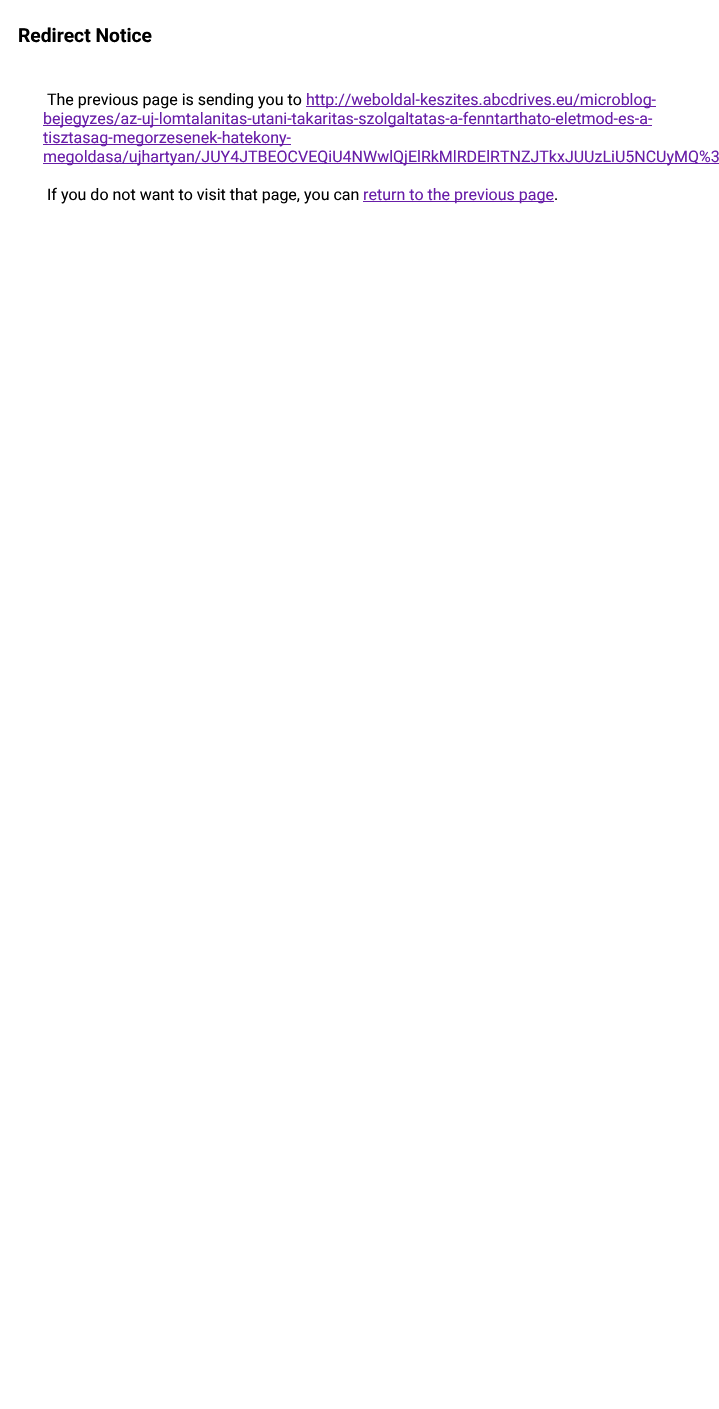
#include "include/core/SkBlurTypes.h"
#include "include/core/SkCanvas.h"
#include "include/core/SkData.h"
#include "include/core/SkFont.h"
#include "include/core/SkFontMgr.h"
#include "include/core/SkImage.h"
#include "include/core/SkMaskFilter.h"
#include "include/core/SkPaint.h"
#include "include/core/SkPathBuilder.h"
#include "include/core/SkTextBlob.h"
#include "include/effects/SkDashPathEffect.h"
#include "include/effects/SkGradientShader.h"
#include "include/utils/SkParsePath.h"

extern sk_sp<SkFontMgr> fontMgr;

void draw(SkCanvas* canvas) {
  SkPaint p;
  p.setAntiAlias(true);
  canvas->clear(SK_ColorWHITE);
  p.setColor(SkColorSetRGB(104, 29, 168));
  canvas->drawRect(SkRect::MakeLTRB(306, 106, 656, 107), p);
  canvas->drawRect(SkRect::MakeLTRB(43, 125, 652, 126), p);
  canvas->drawRect(SkRect::MakeLTRB(43, 144, 291, 145), p);
  canvas->drawRect(SkRect::MakeLTRB(43, 163, 719, 164), p);
  canvas->drawRect(SkRect::MakeLTRB(363, 201, 554, 202), p);
  SkFont font1(fontMgr->matchFamilyStyle("Roboto", SkFontStyle::Bold()), 19.25f);
  font1.setSubpixel(true);
  p.setColor(SK_ColorBLACK);
  canvas->drawString("Redirect Notice", 18, 42, font1, p);
  SkFont font2(fontMgr->matchFamilyStyle("Roboto", SkFontStyle::Normal()), 16);
  font2.setSubpixel(true);
  canvas->drawString("The previous page is sending you to", 47, 105, font2, p);
  p.setColor(SkColorSetRGB(104, 29, 168));
  canvas->drawString("http://weboldal-keszites.abcdrives.eu/microblog-", 306, 105, font2, p);
  canvas->drawString("bejegyzes/az-uj-lomtalanitas-utani-takaritas-szolgaltatas-a-fenntarthato-eletmod-es-a-", 43, 124, font2, p);
  canvas->drawString("tisztasag-megorzesenek-hatekony-", 43, 143, font2, p);
  canvas->drawString("megoldasa/ujhartyan/JUY4JTBEOCVEQiU4NWwlQjElRkMlRDElRTNZJTkxJUUzLiU5NCUyMQ%3", 43, 162, font2, p);
  p.setColor(SK_ColorBLACK);
  canvas->drawString("If you do not want to visit that page, you can", 47, 200, font2, p);
  p.setColor(SkColorSetRGB(104, 29, 168));
  canvas->drawString("return to the previous page", 363, 200, font2, p);
  p.setColor(SK_ColorBLACK);
  canvas->drawString(".", 554, 200, font2, p);
}
